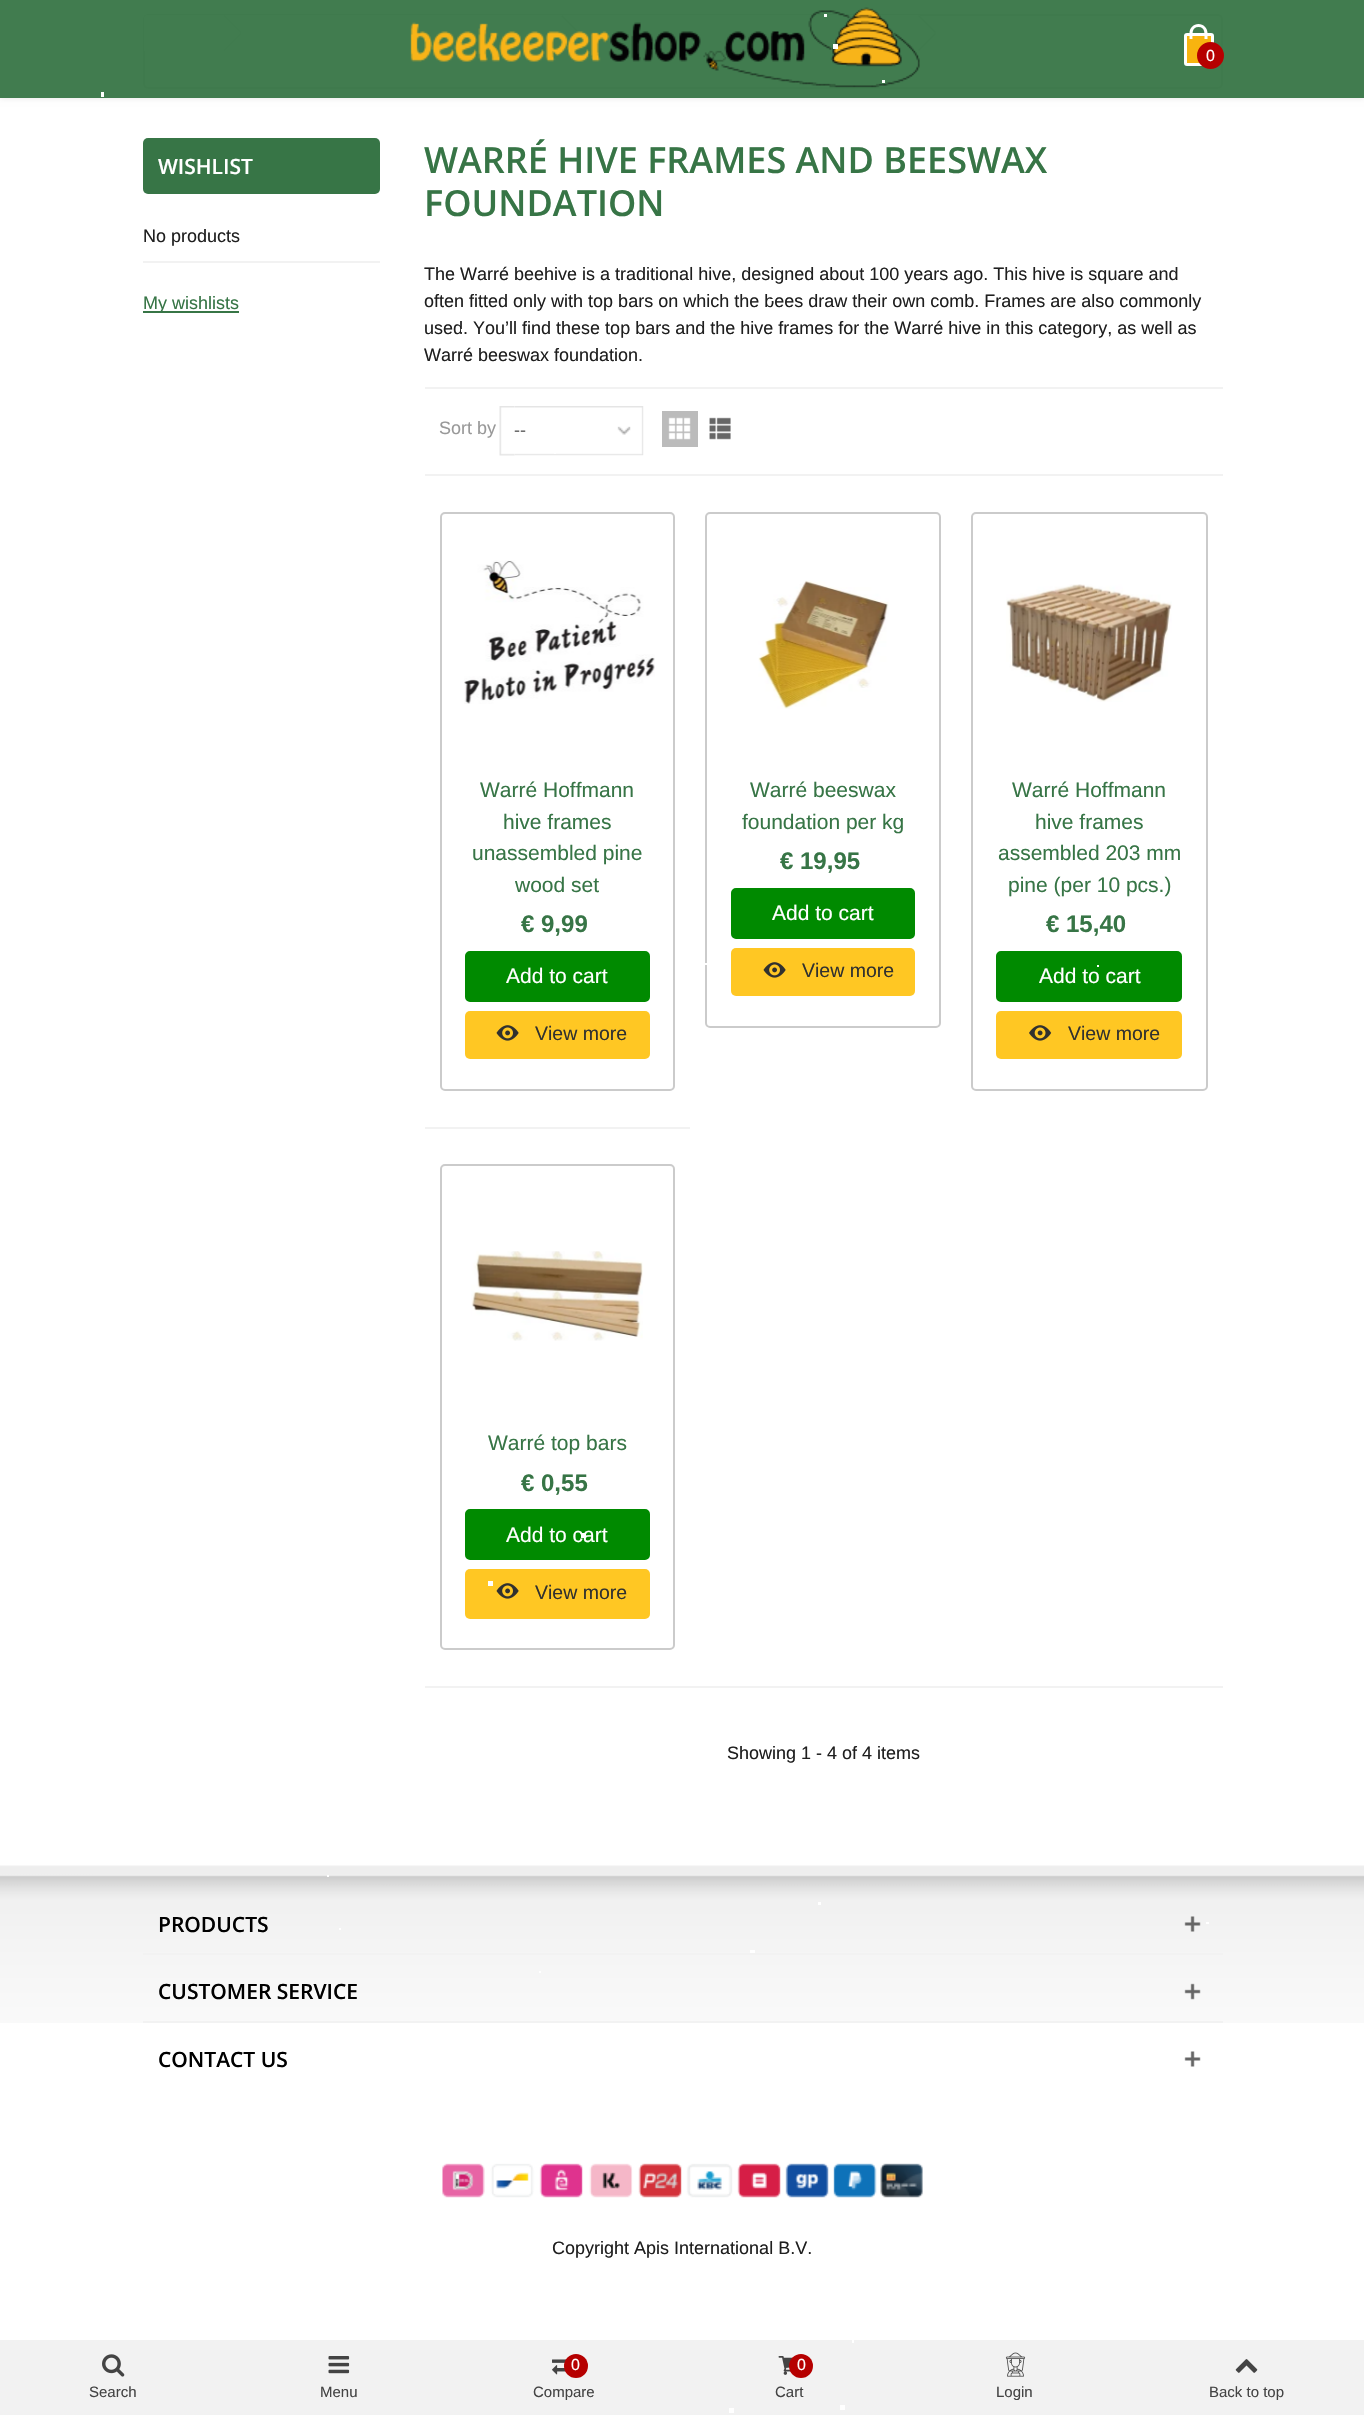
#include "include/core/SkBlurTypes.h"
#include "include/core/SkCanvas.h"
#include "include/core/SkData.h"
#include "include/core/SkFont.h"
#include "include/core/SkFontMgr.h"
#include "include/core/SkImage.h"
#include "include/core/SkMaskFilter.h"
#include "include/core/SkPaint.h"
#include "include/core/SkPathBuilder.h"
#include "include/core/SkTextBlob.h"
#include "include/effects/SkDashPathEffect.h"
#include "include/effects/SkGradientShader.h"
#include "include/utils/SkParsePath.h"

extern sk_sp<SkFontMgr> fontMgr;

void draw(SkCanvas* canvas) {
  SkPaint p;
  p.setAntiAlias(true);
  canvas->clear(SK_ColorWHITE);
  p.setColor(SkColorSetRGB(246, 246, 246));
  canvas->drawRoundRect(SkRect::MakeLTRB(144, 15, 1222, 88), 4, 4, p);
  p.setStyle(SkPaint::kStroke_Style);
  p.setStrokeWidth(2);
  p.setColor(SkColorSetRGB(214, 212, 212));
  canvas->drawRoundRect(SkRect::MakeLTRB(144, 15, 1222, 88), 4, 4, p);
  p.setStyle(SkPaint::kFill_Style);
  p.setColor(SK_ColorWHITE);
  canvas->drawPath(SkPathBuilder().moveTo(147, 15).lineTo(227, 15).lineTo(227, 51).lineTo(144, 51).lineTo(144, 18).cubicTo(144, 16.5f, 145.5f, 15, 147, 15).close().detach(), p);
  canvas->drawPath(SkPathBuilder().moveTo(230.5f, 16).lineTo(245.5f, 31).cubicTo(246.5f, 32, 246.5f, 34, 245.5f, 35).lineTo(230.5f, 50).cubicTo(229.5f, 51, 227.5f, 51, 226.5f, 50).lineTo(211.5f, 35).cubicTo(210.5f, 34, 210.5f, 32, 211.5f, 31).lineTo(226.5f, 16).cubicTo(227.5f, 15, 229.5f, 15, 230.5f, 16).close().detach(), p);
  canvas->drawRect(SkRect::MakeLTRB(227, 15, 563, 51), p);
  canvas->drawPath(SkPathBuilder().moveTo(568.5f, 16).lineTo(583, 31).cubicTo(584.5f, 32, 584.5f, 34, 583, 35).lineTo(568.5f, 50).cubicTo(567, 51, 565.5f, 51, 564, 50).lineTo(549, 35).cubicTo(548, 34, 548, 32, 549, 31).lineTo(564, 16).cubicTo(565.5f, 15, 567, 15, 568.5f, 16).close().detach(), p);
  canvas->drawRect(SkRect::MakeLTRB(563, 15, 917, 51), p);
  p.setColor(SkColorSetRGB(214, 212, 212));
  canvas->drawPath(SkPathBuilder().moveTo(224.5f, 15).lineTo(241.5f, 32).lineTo(240.5f, 33).lineTo(223.5f, 16).close().moveTo(240.5f, 33).lineTo(241.5f, 34).lineTo(224.5f, 51).lineTo(223.5f, 50).close().detach(), p);
  canvas->drawPath(SkPathBuilder().moveTo(562.5f, 15).lineTo(579.5f, 32).lineTo(578, 33).lineTo(561, 16).close().moveTo(578, 33).lineTo(579.5f, 34).lineTo(562.5f, 51).lineTo(561, 50).close().detach(), p);
  p.setColor(SK_ColorWHITE);
  canvas->drawPath(SkPathBuilder().moveTo(920, 16).lineTo(935, 31).cubicTo(936, 32, 936, 34, 935, 35).lineTo(920, 50).cubicTo(919, 51, 917, 51, 915.5f, 50).lineTo(901, 35).cubicTo(899.5f, 34, 899.5f, 32, 901, 31).lineTo(915.5f, 16).cubicTo(917, 15, 919, 15, 920, 16).close().detach(), p);
  p.setColor(SkColorSetRGB(214, 212, 212));
  canvas->drawPath(SkPathBuilder().moveTo(919, 15).lineTo(936, 32).lineTo(935, 33).lineTo(918, 16).close().moveTo(935, 33).lineTo(936, 34).lineTo(919, 51).lineTo(918, 50).close().detach(), p);
  canvas->save();
  canvas->clipPath(SkPathBuilder(SkPathFillType::kEvenOdd).moveTo(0, 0).lineTo(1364, 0).lineTo(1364, 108).lineTo(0, 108).close().moveTo(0, 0).lineTo(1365, 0).lineTo(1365, 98).lineTo(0, 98).close().detach(), true);
  p.setColor(SkColorSetARGB(26, 0, 0, 0));
  p.setMaskFilter(SkMaskFilter::MakeBlur(kNormal_SkBlurStyle, 3));
  canvas->drawRect(SkRect::MakeLTRB(0, 0, 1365, 98), p);
  p.setMaskFilter(nullptr);
  canvas->restore();
  p.setColor(SkColorSetARGB(242, 55, 117, 70));
  canvas->drawRect(SkRect::MakeLTRB(0, 0, 1364, 98), p);
  canvas->drawImageRect(SkImages::DeferredFromEncodedData(SkData::MakeFromFileName("images/1.png")), SkRect::MakeLTRB(410, 7, 920, 88), SkSamplingOptions());
  p.setColor(SK_ColorWHITE);
  canvas->drawRect(SkRect::MakeLTRB(824, 14, 827, 17), p);
  canvas->drawRect(SkRect::MakeLTRB(833, 44, 838, 49), p);
  p.setColor(SkColorSetRGB(248, 180, 15));
  canvas->drawRoundRect(SkRect::MakeLTRB(1185.5f, 34.5f, 1212.5f, 64.5f), 1.5f, 1.5f, p);
  p.setStyle(SkPaint::kStroke_Style);
  p.setStrokeWidth(3);
  p.setColor(SK_ColorWHITE);
  canvas->drawRoundRect(SkRect::MakeLTRB(1185.5f, 34.5f, 1212.5f, 64.5f), 1.5f, 1.5f, p);
  p.setStyle(SkPaint::kFill_Style);
  canvas->drawPath(SkPathBuilder(SkPathFillType::kEvenOdd).moveTo(1198.5f, 24).cubicTo(1203.5f, 24, 1207.5f, 28, 1207.5f, 33).lineTo(1207.5f, 39).lineTo(1189.5f, 39).lineTo(1189.5f, 33).cubicTo(1189.5f, 28, 1193.5f, 24, 1198.5f, 24).close().moveTo(1198.5f, 27).cubicTo(1205.5f, 27, 1204.5f, 34.5f, 1204.5f, 39).lineTo(1192.5f, 39).cubicTo(1192.5f, 34.5f, 1191.5f, 27, 1198.5f, 27).close().detach(), p);
  p.setColor(SkColorSetRGB(182, 0, 0));
  canvas->drawCircle(1210.5f, 55.5f, 12, p);
  p.setStyle(SkPaint::kStroke_Style);
  canvas->drawCircle(1210.5f, 55.5f, 12, p);
  p.setStyle(SkPaint::kFill_Style);
  p.setColor(SkColorSetRGB(55, 117, 70));
  canvas->drawRoundRect(SkRect::MakeLTRB(143, 138, 380, 194), 5, 5, p);
  p.setColor(SkColorSetRGB(242, 242, 242));
  canvas->drawRect(SkRect::MakeLTRB(143, 261, 380, 263), p);
  p.setColor(SkColorSetRGB(55, 117, 70));
  canvas->drawRect(SkRect::MakeLTRB(143, 311, 239, 313), p);
  p.setColor(SkColorSetRGB(242, 242, 242));
  canvas->drawRect(SkRect::MakeLTRB(425, 387, 1223, 389), p);
  canvas->drawRect(SkRect::MakeLTRB(425, 474, 1223, 476), p);
  canvas->drawImageRect(SkImages::DeferredFromEncodedData(SkData::MakeFromFileName("images/2.png")), SkRect::MakeLTRB(499, 406, 515, 456), SkSamplingOptions());
  canvas->drawImageRect(SkImages::DeferredFromEncodedData(SkData::MakeFromFileName("images/3.png")), SkRect::MakeLTRB(514, 406, 644, 456), SkSamplingOptions());
  p.setColor(SkColorSetRGB(187, 187, 187));
  canvas->drawRect(SkRect::MakeLTRB(662, 411, 698, 447), p);
  canvas->drawImageRect(SkImages::DeferredFromEncodedData(SkData::MakeFromFileName("images/4.png")), SkRect::MakeLTRB(668, 417, 691, 440), SkSamplingOptions());
  canvas->drawImageRect(SkImages::DeferredFromEncodedData(SkData::MakeFromFileName("images/5.png")), SkRect::MakeLTRB(709, 417, 731, 440), SkSamplingOptions());
  p.setStyle(SkPaint::kStroke_Style);
  p.setStrokeWidth(2);
  p.setColor(SkColorSetRGB(203, 203, 203));
  canvas->drawRoundRect(SkRect::MakeLTRB(441, 513, 674, 1090), 4, 4, p);
  canvas->drawImageRect(SkImages::DeferredFromEncodedData(SkData::MakeFromFileName("images/6.png")), SkRect::MakeLTRB(464, 560, 655, 704), SkSamplingOptions());
  p.setStyle(SkPaint::kFill_Style);
  p.setColor(SkColorSetRGB(0, 138, 0));
  canvas->drawRoundRect(SkRect::MakeLTRB(466.5f, 952.5f, 648.5f, 1000.5f), 3.5f, 3.5f, p);
  p.setStyle(SkPaint::kStroke_Style);
  p.setStrokeWidth(3);
  canvas->drawRoundRect(SkRect::MakeLTRB(466.5f, 952.5f, 648.5f, 1000.5f), 3.5f, 3.5f, p);
  p.setStyle(SkPaint::kFill_Style);
  p.setColor(SkColorSetRGB(255, 199, 35));
  canvas->drawRoundRect(SkRect::MakeLTRB(465, 1011, 650, 1059), 5, 5, p);
  canvas->drawImageRect(SkImages::DeferredFromEncodedData(SkData::MakeFromFileName("images/7.png")), SkRect::MakeLTRB(496, 1025, 519, 1041), SkSamplingOptions());
  p.setStyle(SkPaint::kStroke_Style);
  p.setStrokeWidth(2);
  p.setColor(SkColorSetRGB(203, 203, 203));
  canvas->drawRoundRect(SkRect::MakeLTRB(706, 513, 940, 1027), 4, 4, p);
  canvas->drawImageRect(SkImages::DeferredFromEncodedData(SkData::MakeFromFileName("images/8.png")), SkRect::MakeLTRB(758, 580, 889, 709), SkSamplingOptions());
  p.setStyle(SkPaint::kFill_Style);
  p.setColor(SkColorSetRGB(0, 138, 0));
  canvas->drawRoundRect(SkRect::MakeLTRB(732.5f, 889.5f, 913.5f, 937.5f), 3.5f, 3.5f, p);
  p.setStyle(SkPaint::kStroke_Style);
  p.setStrokeWidth(3);
  canvas->drawRoundRect(SkRect::MakeLTRB(732.5f, 889.5f, 913.5f, 937.5f), 3.5f, 3.5f, p);
  p.setStyle(SkPaint::kFill_Style);
  p.setColor(SkColorSetRGB(255, 199, 35));
  canvas->drawRoundRect(SkRect::MakeLTRB(731, 948, 915, 996), 5, 5, p);
  canvas->drawImageRect(SkImages::DeferredFromEncodedData(SkData::MakeFromFileName("images/7.png")), SkRect::MakeLTRB(763, 962, 786, 978), SkSamplingOptions());
  p.setStyle(SkPaint::kStroke_Style);
  p.setStrokeWidth(2);
  p.setColor(SkColorSetRGB(203, 203, 203));
  canvas->drawRoundRect(SkRect::MakeLTRB(972, 513, 1207, 1090), 4, 4, p);
  canvas->drawImageRect(SkImages::DeferredFromEncodedData(SkData::MakeFromFileName("images/9.png")), SkRect::MakeLTRB(1006, 584, 1172, 702), SkSamplingOptions());
  p.setStyle(SkPaint::kFill_Style);
  p.setColor(SkColorSetRGB(0, 138, 0));
  canvas->drawRoundRect(SkRect::MakeLTRB(997.5f, 952.5f, 1180.5f, 1000.5f), 3.5f, 3.5f, p);
  p.setStyle(SkPaint::kStroke_Style);
  p.setStrokeWidth(3);
  canvas->drawRoundRect(SkRect::MakeLTRB(997.5f, 952.5f, 1180.5f, 1000.5f), 3.5f, 3.5f, p);
  p.setStyle(SkPaint::kFill_Style);
  p.setColor(SkColorSetRGB(255, 199, 35));
  canvas->drawRoundRect(SkRect::MakeLTRB(996, 1011, 1182, 1059), 5, 5, p);
  canvas->drawImageRect(SkImages::DeferredFromEncodedData(SkData::MakeFromFileName("images/10.png")), SkRect::MakeLTRB(1029, 1025, 1052, 1041), SkSamplingOptions());
  p.setColor(SkColorSetRGB(242, 242, 242));
  canvas->drawRect(SkRect::MakeLTRB(425, 1127, 690, 1129), p);
  p.setStyle(SkPaint::kStroke_Style);
  p.setStrokeWidth(2);
  p.setColor(SkColorSetRGB(203, 203, 203));
  canvas->drawRoundRect(SkRect::MakeLTRB(441, 1165, 674, 1649), 4, 4, p);
  canvas->drawImageRect(SkImages::DeferredFromEncodedData(SkData::MakeFromFileName("images/11.png")), SkRect::MakeLTRB(471, 1251, 643, 1341), SkSamplingOptions());
  p.setStyle(SkPaint::kFill_Style);
  p.setColor(SkColorSetRGB(0, 138, 0));
  canvas->drawRoundRect(SkRect::MakeLTRB(466.5f, 1510.5f, 648.5f, 1558.5f), 3.5f, 3.5f, p);
  p.setStyle(SkPaint::kStroke_Style);
  p.setStrokeWidth(3);
  canvas->drawRoundRect(SkRect::MakeLTRB(466.5f, 1510.5f, 648.5f, 1558.5f), 3.5f, 3.5f, p);
  p.setStyle(SkPaint::kFill_Style);
  p.setColor(SkColorSetRGB(255, 199, 35));
  canvas->drawRoundRect(SkRect::MakeLTRB(465, 1569, 650, 1619), 5, 5, p);
  canvas->drawImageRect(SkImages::DeferredFromEncodedData(SkData::MakeFromFileName("images/7.png")), SkRect::MakeLTRB(496, 1583, 519, 1599), SkSamplingOptions());
  p.setColor(SkColorSetRGB(242, 242, 242));
  canvas->drawRect(SkRect::MakeLTRB(425, 1686, 1223, 1688), p);
  canvas->drawImageRect(SkImages::DeferredFromEncodedData(SkData::MakeFromFileName("images/12.png")), SkRect::MakeLTRB(0, 1865, 1364, 2023), SkSamplingOptions());
  canvas->drawRect(SkRect::MakeLTRB(143, 1953, 1223, 1955), p);
  canvas->drawImageRect(SkImages::DeferredFromEncodedData(SkData::MakeFromFileName("images/13.png")), SkRect::MakeLTRB(1184, 1916, 1201, 1932), SkSamplingOptions());
  canvas->drawRect(SkRect::MakeLTRB(143, 2021, 1223, 2023), p);
  canvas->drawImageRect(SkImages::DeferredFromEncodedData(SkData::MakeFromFileName("images/14.png")), SkRect::MakeLTRB(1184, 1983, 1201, 2000), SkSamplingOptions());
  canvas->drawImageRect(SkImages::DeferredFromEncodedData(SkData::MakeFromFileName("images/15.png")), SkRect::MakeLTRB(1184, 2051, 1201, 2067), SkSamplingOptions());
  canvas->drawImageRect(SkImages::DeferredFromEncodedData(SkData::MakeFromFileName("images/16.png")), SkRect::MakeLTRB(442, 2163, 923, 2198), SkSamplingOptions());
  canvas->drawRect(SkRect::MakeLTRB(0, 2340, 1364, 2415), p);
  canvas->drawImageRect(SkImages::DeferredFromEncodedData(SkData::MakeFromFileName("images/17.png")), SkRect::MakeLTRB(102, 2354, 125, 2377), SkSamplingOptions());
  canvas->drawImageRect(SkImages::DeferredFromEncodedData(SkData::MakeFromFileName("images/18.png")), SkRect::MakeLTRB(328, 2356, 350, 2374), SkSamplingOptions());
  canvas->drawImageRect(SkImages::DeferredFromEncodedData(SkData::MakeFromFileName("images/19.png")), SkRect::MakeLTRB(552, 2359, 567, 2375), SkSamplingOptions());
  p.setColor(SkColorSetRGB(182, 0, 0));
  canvas->drawCircle(576, 2366, 12, p);
  canvas->drawImageRect(SkImages::DeferredFromEncodedData(SkData::MakeFromFileName("images/20.png")), SkRect::MakeLTRB(778, 2356, 794, 2375), SkSamplingOptions());
  canvas->drawCircle(801, 2366, 12, p);
  canvas->drawImageRect(SkImages::DeferredFromEncodedData(SkData::MakeFromFileName("images/21.png")), SkRect::MakeLTRB(1005, 2352, 1026, 2377), SkSamplingOptions());
  canvas->drawImageRect(SkImages::DeferredFromEncodedData(SkData::MakeFromFileName("images/22.png")), SkRect::MakeLTRB(1235, 2359, 1258, 2373), SkSamplingOptions());
  p.setColor(SK_ColorWHITE);
  canvas->drawRect(SkRect::MakeLTRB(882, 80, 885, 83), p);
  canvas->drawRect(SkRect::MakeLTRB(101, 92, 104, 97), p);
  canvas->drawRect(SkRect::MakeLTRB(554, 453, 556, 454), p);
  canvas->drawRect(SkRect::MakeLTRB(705, 963, 707, 965), p);
  canvas->drawRect(SkRect::MakeLTRB(1097, 965, 1099, 967), p);
  canvas->drawRect(SkRect::MakeLTRB(581, 1533, 586, 1538), p);
  canvas->drawRect(SkRect::MakeLTRB(488, 1581, 493, 1586), p);
  canvas->drawRect(SkRect::MakeLTRB(327, 1875, 329, 1877), p);
  canvas->drawRect(SkRect::MakeLTRB(818, 1902, 821, 1905), p);
  canvas->drawRect(SkRect::MakeLTRB(1206, 1922, 1209, 1924), p);
  canvas->drawRect(SkRect::MakeLTRB(339, 1928, 341, 1930), p);
  canvas->drawRect(SkRect::MakeLTRB(750, 1950, 755, 1953), p);
  canvas->drawRect(SkRect::MakeLTRB(539, 1971, 541, 1973), p);
  canvas->drawRect(SkRect::MakeLTRB(852, 2340, 854, 2343), p);
  canvas->drawRect(SkRect::MakeLTRB(840, 2405, 845, 2410), p);
  canvas->drawRect(SkRect::MakeLTRB(729, 2408, 734, 2413), p);
  SkFont font1(fontMgr->matchFamilyStyle("Liberation Sans", SkFontStyle::Normal()), 16);
  font1.setSubpixel(true);
  canvas->drawString("0", 1206, 61, font1, p);
  SkFont font2(fontMgr->matchFamilyStyle("Open Sans", SkFontStyle(600, SkFontStyle::kNormal_Width, SkFontStyle::kUpright_Slant)), 21);
  font2.setSubpixel(true);
  canvas->drawString("WISHLIST", 158, 174, font2, p);
  SkFont font3(fontMgr->matchFamilyStyle("Liberation Sans", SkFontStyle::Normal()), 18);
  font3.setSubpixel(true);
  p.setColor(SkColorSetRGB(31, 31, 31));
  canvas->drawString("No products", 143, 242, font3, p);
  p.setColor(SkColorSetRGB(55, 117, 70));
  canvas->drawString("My wishlists", 143, 309, font3, p);
  SkFont font4(fontMgr->matchFamilyStyle("Open Sans", SkFontStyle(600, SkFontStyle::kNormal_Width, SkFontStyle::kUpright_Slant)), 36);
  font4.setSubpixel(true);
  canvas->drawString("WARRÉ HIVE FRAMES AND BEESWAX", 424, 173, font4, p);
  canvas->drawString("FOUNDATION", 424, 216, font4, p);
  p.setColor(SkColorSetRGB(31, 31, 31));
  canvas->drawString("The Warré beehive is a traditional hive, designed about 100 years ago. This hive is square and", 424, 280, font3, p);
  canvas->drawString("often fitted only with top bars on which the bees draw their own comb. Frames are also commonly", 424, 307, font3, p);
  canvas->drawString("used. You’ll find these top bars and the hive frames for the Warré hive in this category, as well as", 424, 334, font3, p);
  canvas->drawString("Warré beeswax foundation.", 424, 361, font3, p);
  p.setColor(SkColorSetRGB(153, 153, 153));
  canvas->drawString("Sort by", 439, 434, font3, p);
  p.setColor(SkColorSetRGB(102, 102, 102));
  canvas->drawString("--", 514, 436, font3, p);
  SkFont font5(fontMgr->matchFamilyStyle("Liberation Sans", SkFontStyle::Normal()), 21);
  font5.setSubpixel(true);
  p.setColor(SkColorSetRGB(55, 117, 70));
  canvas->drawString("Warré Hoffmann", 480, 797, font5, p);
  canvas->drawString("hive frames", 503, 829, font5, p);
  canvas->drawString("unassembled pine", 472, 860, font5, p);
  canvas->drawString("wood set", 515, 892, font5, p);
  SkFont font6(fontMgr->matchFamilyStyle("Liberation Sans", SkFontStyle::Bold()), 24);
  font6.setSubpixel(true);
  canvas->drawString("€ 9,99", 521, 932, font6, p);
  p.setColor(SK_ColorWHITE);
  canvas->drawString("Add to cart", 506, 983, font5, p);
  SkFont font7(fontMgr->matchFamilyStyle("Liberation Sans", SkFontStyle::Normal()), 19.5f);
  font7.setSubpixel(true);
  p.setColor(SkColorSetRGB(49, 49, 47));
  canvas->drawString("View more", 535, 1040, font7, p);
  p.setColor(SkColorSetRGB(55, 117, 70));
  canvas->drawString("Warré beeswax", 750, 797, font5, p);
  canvas->drawString("foundation per kg", 742, 829, font5, p);
  canvas->drawString("€ 19,95", 780, 869, font6, p);
  p.setColor(SK_ColorWHITE);
  canvas->drawString("Add to cart", 772, 920, font5, p);
  p.setColor(SkColorSetRGB(49, 49, 47));
  canvas->drawString("View more", 802, 977, font7, p);
  p.setColor(SkColorSetRGB(55, 117, 70));
  canvas->drawString("Warré Hoffmann", 1012, 797, font5, p);
  canvas->drawString("hive frames", 1035, 829, font5, p);
  canvas->drawString("assembled 203 mm", 998, 860, font5, p);
  canvas->drawString("pine (per 10 pcs.)", 1008, 892, font5, p);
  canvas->drawString("€ 15,40", 1046, 932, font6, p);
  p.setColor(SK_ColorWHITE);
  canvas->drawString("Add to cart", 1039, 983, font5, p);
  p.setColor(SkColorSetRGB(49, 49, 47));
  canvas->drawString("View more", 1068, 1040, font7, p);
  p.setColor(SkColorSetRGB(55, 117, 70));
  canvas->drawString("Warré top bars", 488, 1450, font5, p);
  canvas->drawString("€ 0,55", 521, 1491, font6, p);
  p.setColor(SK_ColorWHITE);
  canvas->drawString("Add to cart", 506, 1542, font5, p);
  p.setColor(SkColorSetRGB(49, 49, 47));
  canvas->drawString("View more", 535, 1599, font7, p);
  p.setColor(SkColorSetRGB(31, 31, 31));
  canvas->drawString("Showing 1 - 4 of 4 items", 727, 1759, font3, p);
  p.setColor(SK_ColorBLACK);
  canvas->drawString("PRODUCTS", 158, 1932, font2, p);
  canvas->drawString("CUSTOMER SERVICE", 158, 1999, font2, p);
  canvas->drawString("CONTACT US", 158, 2067, font2, p);
  p.setColor(SkColorSetRGB(31, 31, 31));
  canvas->drawString("Copyright Apis International B.V.", 552, 2254, font3, p);
  SkFont font8(fontMgr->matchFamilyStyle("Liberation Sans", SkFontStyle::Normal()), 15);
  font8.setSubpixel(true);
  p.setColor(SkColorSetRGB(68, 68, 68));
  canvas->drawString("Search", 89, 2397, font8, p);
  canvas->drawString("Menu", 320, 2397, font8, p);
  p.setColor(SK_ColorWHITE);
  canvas->drawString("0", 571, 2370, font1, p);
  p.setColor(SkColorSetRGB(68, 68, 68));
  canvas->drawString("Compare", 533, 2397, font8, p);
  p.setColor(SK_ColorWHITE);
  canvas->drawString("0", 797, 2370, font1, p);
  p.setColor(SkColorSetRGB(68, 68, 68));
  canvas->drawString("Cart", 775, 2397, font8, p);
  canvas->drawString("Login", 996, 2397, font8, p);
  canvas->drawString("Back to top", 1209, 2397, font8, p);
  p.setColor(SK_ColorWHITE);
  canvas->drawRect(SkRect::MakeLTRB(570, 270, 572, 271), p);
  canvas->drawRect(SkRect::MakeLTRB(771, 299, 774, 301), p);
  canvas->drawRect(SkRect::MakeLTRB(461, 329, 464, 332), p);
}
